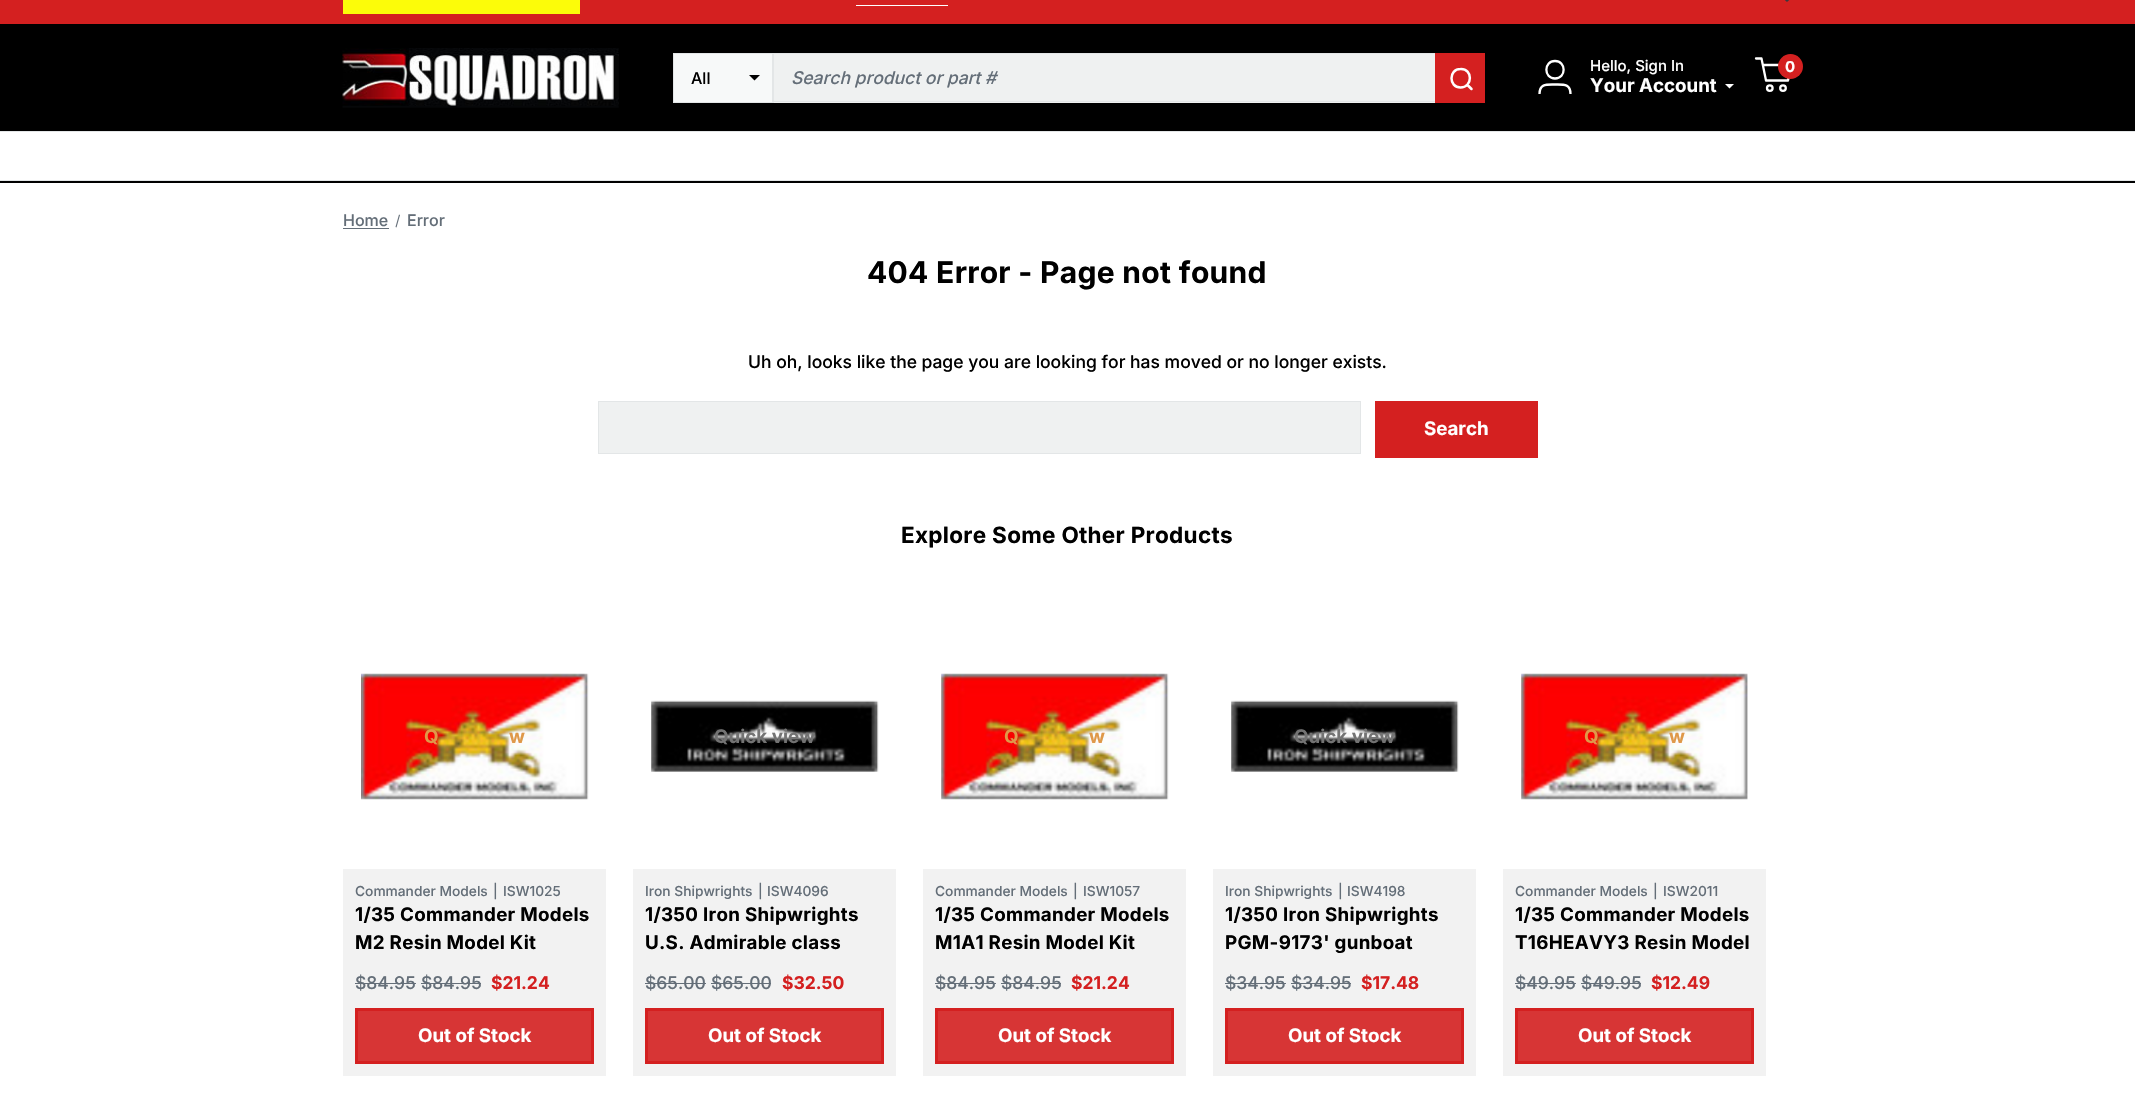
#include "include/core/SkBlurTypes.h"
#include "include/core/SkCanvas.h"
#include "include/core/SkData.h"
#include "include/core/SkFont.h"
#include "include/core/SkFontMgr.h"
#include "include/core/SkImage.h"
#include "include/core/SkMaskFilter.h"
#include "include/core/SkPaint.h"
#include "include/core/SkPathBuilder.h"
#include "include/core/SkTextBlob.h"
#include "include/effects/SkDashPathEffect.h"
#include "include/effects/SkGradientShader.h"
#include "include/utils/SkParsePath.h"

extern sk_sp<SkFontMgr> fontMgr;

void draw(SkCanvas* canvas) {
  SkPaint p;
  p.setAntiAlias(true);
  auto spacedText = [&](const char* s, float x, float y, const SkFont& font, const SkPaint& ink, float letter, float word) {
    std::vector<SkGlyphID> glyphs(font.countText(s, strlen(s), SkTextEncoding::kUTF8));
    std::vector<float> xs(glyphs.size());
    font.textToGlyphs(s, strlen(s), SkTextEncoding::kUTF8, glyphs);
    font.getXPos(glyphs, xs, x);
    float extra = 0;
    for (size_t i = 0; i < glyphs.size(); i++) {
      xs[i] += extra;
      extra += letter + word * (glyphs[i] == font.unicharToGlyph(' '));
    }
    canvas->drawTextBlob(SkTextBlob::MakeFromPosHGlyphs(glyphs, xs, y, font), 0, 0, ink);
  };
  canvas->clear(SK_ColorWHITE);
  p.setColor(SK_ColorBLACK);
  canvas->drawRect(SkRect::MakeLTRB(0, 24, 2135, 183), p);
  p.setColor(SkColorSetRGB(212, 32, 32));
  canvas->drawRect(SkRect::MakeLTRB(0, 0, 2135, 24), p);
  p.setColor(SkColorSetRGB(252, 252, 9));
  canvas->drawRect(SkRect::MakeLTRB(343, 0, 580, 14), p);
  p.setColor(SK_ColorWHITE);
  canvas->drawRect(SkRect::MakeLTRB(856, 5, 948, 6), p);
  p.setColor(SkColorSetRGB(60, 55, 61));
  canvas->drawPath(SkPathBuilder().moveTo(1787, 2).lineTo(1782.5f, -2).lineTo(1791.5f, -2).close().detach(), p);
  canvas->drawImageRect(SkImages::DeferredFromEncodedData(SkData::MakeFromFileName("images/1.png")), SkRect::MakeLTRB(342, 48, 619, 108), SkSamplingOptions());
  p.setColor(SkColorSetRGB(247, 249, 249));
  canvas->drawRect(SkRect::MakeLTRB(674, 54, 772, 102), p);
  p.setColor(SK_ColorBLACK);
  canvas->drawPath(SkPathBuilder().moveTo(754.5f, 80.5f).lineTo(749, 75).lineTo(760, 75).close().detach(), p);
  p.setStyle(SkPaint::kStroke_Style);
  p.setStrokeWidth(1);
  p.setColor(SkColorSetRGB(227, 230, 231));
  canvas->drawRect(SkRect::MakeLTRB(673.5f, 53.5f, 772.5f, 102.5f), p);
  p.setStyle(SkPaint::kFill_Style);
  p.setColor(SkColorSetRGB(239, 241, 241));
  canvas->drawRect(SkRect::MakeLTRB(774, 54, 1435, 103), p);
  p.setColor(SkColorSetRGB(227, 230, 231));
  canvas->drawRect(SkRect::MakeLTRB(773, 53, 1435, 54), p);
  canvas->drawRect(SkRect::MakeLTRB(773, 101, 1435, 102), p);
  canvas->drawRect(SkRect::MakeLTRB(773, 53, 774, 103), p);
  p.setColor(SkColorSetRGB(212, 32, 32));
  canvas->drawRect(SkRect::MakeLTRB(1435, 53, 1485, 103), p);
  p.setStyle(SkPaint::kStroke_Style);
  p.setStrokeWidth(2.5f);
  p.setStrokeCap(SkPaint::kRound_Cap);
  p.setStrokeJoin(SkPaint::kRound_Join);
  p.setColor(SK_ColorWHITE);
  canvas->drawPath(SkPathBuilder().moveTo(1460.5f, 87.5f).cubicTo(1473, 87.5f, 1473, 68.5f, 1460.5f, 69).cubicTo(1448.5f, 69, 1448.5f, 87.5f, 1460.5f, 87.5f).close().moveTo(1467.5f, 85).lineTo(1471.5f, 89).detach(), p);
  p.setStrokeWidth(2.3f);
  p.setStrokeCap(SkPaint::kButt_Cap);
  p.setStrokeJoin(SkPaint::kMiter_Join);
  canvas->drawPath(SkPathBuilder().moveTo(1555, 78.5f).cubicTo(1543.5f, 78.5f, 1543.5f, 61, 1555, 61).cubicTo(1566.5f, 61, 1566.5f, 78.5f, 1555, 78.5f).close().moveTo(1539.5f, 94).cubicTo(1539.5f, 83.5f, 1546.5f, 84.5f, 1555, 84.5f).cubicTo(1563.5f, 84.5f, 1570.5f, 83.5f, 1570.5f, 94).detach(), p);
  p.setStyle(SkPaint::kFill_Style);
  canvas->drawPath(SkPathBuilder().moveTo(1729.5f, 88.5f).lineTo(1725, 84).lineTo(1734, 84).close().detach(), p);
  p.setStyle(SkPaint::kStroke_Style);
  p.setStrokeCap(SkPaint::kRound_Cap);
  p.setStrokeJoin(SkPaint::kRound_Join);
  canvas->drawPath(SkPathBuilder().moveTo(1763, 65).lineTo(1791, 65).lineTo(1788, 80.5f).lineTo(1766, 80.5f).lineTo(1761.5f, 58.5f).lineTo(1756, 58.5f).detach(), p);
  p.setStyle(SkPaint::kFill_Style);
  p.setColor(SkColorSetRGB(212, 32, 32));
  canvas->drawCircle(1790.5f, 66.5f, 12.5f, p);
  p.setStyle(SkPaint::kStroke_Style);
  p.setStrokeCap(SkPaint::kButt_Cap);
  p.setStrokeJoin(SkPaint::kMiter_Join);
  p.setColor(SK_ColorWHITE);
  canvas->drawCircle(1769.8f, 88.1f, 2.8f, p);
  canvas->drawCircle(1783, 88.1f, 2.8f, p);
  p.setStyle(SkPaint::kFill_Style);
  canvas->drawRect(SkRect::MakeLTRB(0, 132, 2135, 180), p);
  p.setColor(SkColorSetRGB(227, 230, 231));
  canvas->drawRect(SkRect::MakeLTRB(0, 131, 2135, 132), p);
  canvas->drawRect(SkRect::MakeLTRB(0, 180, 2135, 181), p);
  p.setColor(SkColorSetRGB(100, 110, 120));
  canvas->drawRect(SkRect::MakeLTRB(343, 228, 389, 229), p);
  canvas->drawPath(SkPathBuilder().moveTo(399, 214.5f).lineTo(400, 215).lineTo(396.5f, 227.5f).lineTo(395.5f, 227).close().detach(), p);
  p.setColor(SkColorSetRGB(239, 241, 241));
  canvas->drawRect(SkRect::MakeLTRB(598.5f, 401.5f, 1360.5f, 453.5f), p);
  p.setStyle(SkPaint::kStroke_Style);
  p.setStrokeWidth(1);
  p.setColor(SkColorSetRGB(227, 230, 231));
  canvas->drawRect(SkRect::MakeLTRB(598.5f, 401.5f, 1360.5f, 453.5f), p);
  p.setStyle(SkPaint::kFill_Style);
  p.setColor(SkColorSetRGB(212, 32, 32));
  canvas->drawRect(SkRect::MakeLTRB(1375, 401, 1538, 458), p);
  canvas->drawImageRect(SkImages::DeferredFromEncodedData(SkData::MakeFromFileName("images/2.png")), SkRect::MakeLTRB(361, 673, 589, 800), SkSamplingOptions());
  p.setColor(SkColorSetRGB(242, 242, 242));
  canvas->drawRect(SkRect::MakeLTRB(343, 869, 606, 1076), p);
  p.setColor(SkColorSetRGB(100, 110, 120));
  canvas->drawRect(SkRect::MakeLTRB(355, 983, 416, 984), p);
  canvas->drawRect(SkRect::MakeLTRB(421, 983, 481, 984), p);
  p.setColor(SkColorSetRGB(215, 53, 53));
  canvas->drawRect(SkRect::MakeLTRB(356.5f, 1009.5f, 592.5f, 1062.5f), p);
  p.setStyle(SkPaint::kStroke_Style);
  p.setStrokeWidth(3);
  p.setColor(SkColorSetRGB(212, 32, 32));
  canvas->drawRect(SkRect::MakeLTRB(356.5f, 1009.5f, 592.5f, 1062.5f), p);
  canvas->drawImageRect(SkImages::DeferredFromEncodedData(SkData::MakeFromFileName("images/3.png")), SkRect::MakeLTRB(651, 700, 879, 772), SkSamplingOptions());
  p.setStyle(SkPaint::kFill_Style);
  p.setColor(SkColorSetRGB(242, 242, 242));
  canvas->drawRect(SkRect::MakeLTRB(633, 869, 896, 1076), p);
  p.setColor(SkColorSetRGB(100, 110, 120));
  canvas->drawRect(SkRect::MakeLTRB(645, 983, 706, 984), p);
  canvas->drawRect(SkRect::MakeLTRB(711, 983, 771, 984), p);
  p.setColor(SkColorSetRGB(215, 53, 53));
  canvas->drawRect(SkRect::MakeLTRB(646.5f, 1009.5f, 882.5f, 1062.5f), p);
  p.setStyle(SkPaint::kStroke_Style);
  p.setColor(SkColorSetRGB(212, 32, 32));
  canvas->drawRect(SkRect::MakeLTRB(646.5f, 1009.5f, 882.5f, 1062.5f), p);
  canvas->drawImageRect(SkImages::DeferredFromEncodedData(SkData::MakeFromFileName("images/4.png")), SkRect::MakeLTRB(941, 673, 1169, 800), SkSamplingOptions());
  p.setStyle(SkPaint::kFill_Style);
  p.setColor(SkColorSetRGB(242, 242, 242));
  canvas->drawRect(SkRect::MakeLTRB(923, 869, 1186, 1076), p);
  p.setColor(SkColorSetRGB(100, 110, 120));
  canvas->drawRect(SkRect::MakeLTRB(935, 983, 996, 984), p);
  canvas->drawRect(SkRect::MakeLTRB(1001, 983, 1061, 984), p);
  p.setColor(SkColorSetRGB(215, 53, 53));
  canvas->drawRect(SkRect::MakeLTRB(936.5f, 1009.5f, 1172.5f, 1062.5f), p);
  p.setStyle(SkPaint::kStroke_Style);
  p.setColor(SkColorSetRGB(212, 32, 32));
  canvas->drawRect(SkRect::MakeLTRB(936.5f, 1009.5f, 1172.5f, 1062.5f), p);
  canvas->drawImageRect(SkImages::DeferredFromEncodedData(SkData::MakeFromFileName("images/5.png")), SkRect::MakeLTRB(1231, 700, 1459, 772), SkSamplingOptions());
  p.setStyle(SkPaint::kFill_Style);
  p.setColor(SkColorSetRGB(242, 242, 242));
  canvas->drawRect(SkRect::MakeLTRB(1213, 869, 1476, 1076), p);
  p.setColor(SkColorSetRGB(100, 110, 120));
  canvas->drawRect(SkRect::MakeLTRB(1225, 983, 1286, 984), p);
  canvas->drawRect(SkRect::MakeLTRB(1291, 983, 1351, 984), p);
  p.setColor(SkColorSetRGB(215, 53, 53));
  canvas->drawRect(SkRect::MakeLTRB(1226.5f, 1009.5f, 1462.5f, 1062.5f), p);
  p.setStyle(SkPaint::kStroke_Style);
  p.setColor(SkColorSetRGB(212, 32, 32));
  canvas->drawRect(SkRect::MakeLTRB(1226.5f, 1009.5f, 1462.5f, 1062.5f), p);
  canvas->drawImageRect(SkImages::DeferredFromEncodedData(SkData::MakeFromFileName("images/6.png")), SkRect::MakeLTRB(1521, 673, 1748, 800), SkSamplingOptions());
  p.setStyle(SkPaint::kFill_Style);
  p.setColor(SkColorSetRGB(242, 242, 242));
  canvas->drawRect(SkRect::MakeLTRB(1503, 869, 1766, 1076), p);
  p.setColor(SkColorSetRGB(100, 110, 120));
  canvas->drawRect(SkRect::MakeLTRB(1515, 983, 1576, 984), p);
  canvas->drawRect(SkRect::MakeLTRB(1581, 983, 1641, 984), p);
  p.setColor(SkColorSetRGB(215, 53, 53));
  canvas->drawRect(SkRect::MakeLTRB(1516.5f, 1009.5f, 1752.5f, 1062.5f), p);
  p.setStyle(SkPaint::kStroke_Style);
  p.setColor(SkColorSetRGB(212, 32, 32));
  canvas->drawRect(SkRect::MakeLTRB(1516.5f, 1009.5f, 1752.5f, 1062.5f), p);
  SkFont font1(fontMgr->matchFamilyStyle("Inter", SkFontStyle(500, SkFontStyle::kNormal_Width, SkFontStyle::kUpright_Slant)), 16);
  font1.setSubpixel(true);
  p.setStyle(SkPaint::kFill_Style);
  p.setColor(SK_ColorBLACK);
  canvas->drawString("All", 691, 84, font1, p);
  SkFont font2(fontMgr->matchFamilyStyle("Inter", SkFontStyle(500, SkFontStyle::kNormal_Width, SkFontStyle::kItalic_Slant)), 17.5f);
  font2.setSubpixel(true);
  p.setColor(SkColorSetRGB(100, 110, 120));
  canvas->drawString("Search product or part #", 791, 84, font2, p);
  SkFont font3(fontMgr->matchFamilyStyle("Inter", SkFontStyle(500, SkFontStyle::kNormal_Width, SkFontStyle::kUpright_Slant)), 15);
  font3.setSubpixel(true);
  p.setColor(SK_ColorWHITE);
  canvas->drawString("Hello, Sign In", 1590, 71, font3, p);
  SkFont font4(fontMgr->matchFamilyStyle("Inter", SkFontStyle::Bold()), 18.75f);
  font4.setSubpixel(true);
  canvas->drawString("Your Account", 1590, 92, font4, p);
  SkFont font5(fontMgr->matchFamilyStyle("Inter", SkFontStyle::Bold()), 15);
  font5.setSubpixel(true);
  canvas->drawString("0", 1785, 72, font5, p);
  p.setColor(SkColorSetRGB(100, 110, 120));
  canvas->drawString("Home", 343, 226, font1, p);
  canvas->drawString("Error", 407, 226, font1, p);
  SkFont font6(fontMgr->matchFamilyStyle("Inter", SkFontStyle::Bold()), 30);
  font6.setSubpixel(true);
  p.setColor(SK_ColorBLACK);
  spacedText("404 Error - Page not found", 867, 283, font6, p, 0.3f, 0);
  SkFont font7(fontMgr->matchFamilyStyle("Inter", SkFontStyle(500, SkFontStyle::kNormal_Width, SkFontStyle::kUpright_Slant)), 17.5f);
  font7.setSubpixel(true);
  canvas->drawString("Uh oh, looks like the page you are looking for has moved or no longer exists.", 748, 368, font7, p);
  p.setColor(SK_ColorWHITE);
  canvas->drawString("Search", 1424, 435, font4, p);
  SkFont font8(fontMgr->matchFamilyStyle("Inter", SkFontStyle::Bold()), 22.5f);
  font8.setSubpixel(true);
  p.setColor(SK_ColorBLACK);
  spacedText("Explore Some Other Products", 901, 543, font8, p, 0.3f, 0);
  p.setColor(SkColorSetRGB(223, 153, 73));
  canvas->drawString("Q", 424, 743, font4, p);
  canvas->drawString("w", 509, 743, font4, p);
  SkFont font9(fontMgr->matchFamilyStyle("Inter", SkFontStyle(500, SkFontStyle::kNormal_Width, SkFontStyle::kUpright_Slant)), 13.75f);
  font9.setSubpixel(true);
  p.setColor(SkColorSetRGB(100, 110, 120));
  canvas->drawString("Commander Models", 355, 896, font9, p);
  canvas->drawString("|", 493, 896, font9, p);
  canvas->drawString("ISW1025", 503, 896, font9, p);
  p.setColor(SK_ColorBLACK);
  spacedText("1/35 Commander Models", 355, 921, font4, p, 0.3f, 0);
  spacedText("M2 Resin Model Kit", 355, 949, font4, p, 0.3f, 0);
  p.setColor(SkColorSetRGB(100, 110, 120));
  canvas->drawString("$84.95", 355, 989, font7, p);
  canvas->drawString("$84.95", 421, 989, font7, p);
  SkFont font10(fontMgr->matchFamilyStyle("Inter", SkFontStyle::Bold()), 17.5f);
  font10.setSubpixel(true);
  p.setColor(SkColorSetRGB(212, 32, 32));
  canvas->drawString("$21.24", 491, 989, font10, p);
  p.setColor(SK_ColorWHITE);
  canvas->drawString("Out of Stock", 418, 1042, font4, p);
  p.setColor(SkColorSetRGB(115, 115, 115));
  canvas->drawString("Quick view", 714, 743, font4, p);
  p.setColor(SkColorSetRGB(100, 110, 120));
  canvas->drawString("Iron Shipwrights", 645, 896, font9, p);
  canvas->drawString("|", 758, 896, font9, p);
  canvas->drawString("ISW4096", 767, 896, font9, p);
  p.setColor(SK_ColorBLACK);
  spacedText("1/350 Iron Shipwrights", 645, 921, font4, p, 0.3f, 0);
  spacedText("U.S. Admirable class", 645, 949, font4, p, 0.3f, 0);
  p.setColor(SkColorSetRGB(100, 110, 120));
  canvas->drawString("$65.00", 645, 989, font7, p);
  canvas->drawString("$65.00", 711, 989, font7, p);
  p.setColor(SkColorSetRGB(212, 32, 32));
  canvas->drawString("$32.50", 782, 989, font10, p);
  p.setColor(SK_ColorWHITE);
  canvas->drawString("Out of Stock", 708, 1042, font4, p);
  p.setColor(SkColorSetRGB(223, 153, 73));
  canvas->drawString("Q", 1004, 743, font4, p);
  canvas->drawString("w", 1089, 743, font4, p);
  p.setColor(SkColorSetRGB(100, 110, 120));
  canvas->drawString("Commander Models", 935, 896, font9, p);
  canvas->drawString("|", 1073, 896, font9, p);
  canvas->drawString("ISW1057", 1083, 896, font9, p);
  p.setColor(SK_ColorBLACK);
  spacedText("1/35 Commander Models", 935, 921, font4, p, 0.3f, 0);
  spacedText("M1A1 Resin Model Kit", 935, 949, font4, p, 0.3f, 0);
  p.setColor(SkColorSetRGB(100, 110, 120));
  canvas->drawString("$84.95", 935, 989, font7, p);
  canvas->drawString("$84.95", 1001, 989, font7, p);
  p.setColor(SkColorSetRGB(212, 32, 32));
  canvas->drawString("$21.24", 1071, 989, font10, p);
  p.setColor(SK_ColorWHITE);
  canvas->drawString("Out of Stock", 998, 1042, font4, p);
  p.setColor(SkColorSetRGB(115, 115, 115));
  canvas->drawString("Quick view", 1294, 743, font4, p);
  p.setColor(SkColorSetRGB(100, 110, 120));
  canvas->drawString("Iron Shipwrights", 1225, 896, font9, p);
  canvas->drawString("|", 1338, 896, font9, p);
  canvas->drawString("ISW4198", 1347, 896, font9, p);
  p.setColor(SK_ColorBLACK);
  spacedText("1/350 Iron Shipwrights", 1225, 921, font4, p, 0.3f, 0);
  spacedText("PGM-9173' gunboat", 1225, 949, font4, p, 0.3f, 0);
  p.setColor(SkColorSetRGB(100, 110, 120));
  canvas->drawString("$34.95", 1225, 989, font7, p);
  canvas->drawString("$34.95", 1291, 989, font7, p);
  p.setColor(SkColorSetRGB(212, 32, 32));
  canvas->drawString("$17.48", 1361, 989, font10, p);
  p.setColor(SK_ColorWHITE);
  canvas->drawString("Out of Stock", 1288, 1042, font4, p);
  p.setColor(SkColorSetRGB(223, 153, 73));
  canvas->drawString("Q", 1584, 743, font4, p);
  canvas->drawString("w", 1669, 743, font4, p);
  p.setColor(SkColorSetRGB(100, 110, 120));
  canvas->drawString("Commander Models", 1515, 896, font9, p);
  canvas->drawString("|", 1653, 896, font9, p);
  canvas->drawString("ISW2011", 1663, 896, font9, p);
  p.setColor(SK_ColorBLACK);
  spacedText("1/35 Commander Models", 1515, 921, font4, p, 0.3f, 0);
  spacedText("T16HEAVY3 Resin Model", 1515, 949, font4, p, 0.3f, 0);
  p.setColor(SkColorSetRGB(100, 110, 120));
  canvas->drawString("$49.95", 1515, 989, font7, p);
  canvas->drawString("$49.95", 1581, 989, font7, p);
  p.setColor(SkColorSetRGB(212, 32, 32));
  canvas->drawString("$12.49", 1651, 989, font10, p);
  p.setColor(SK_ColorWHITE);
  canvas->drawString("Out of Stock", 1578, 1042, font4, p);
}
